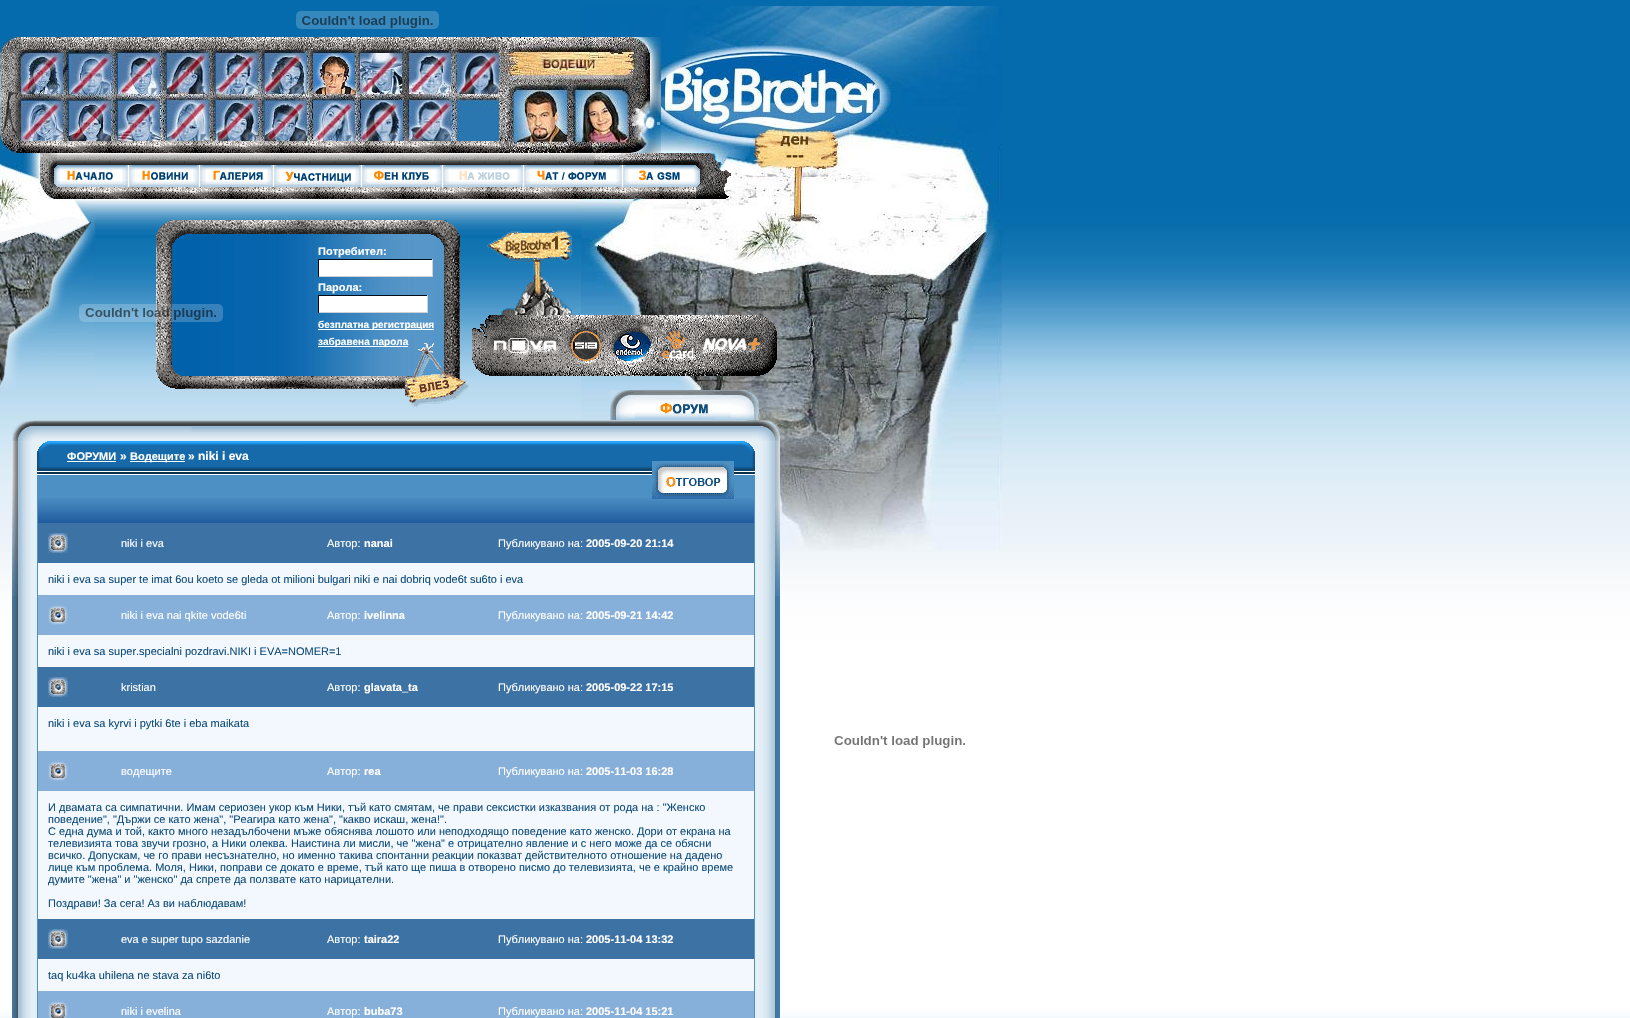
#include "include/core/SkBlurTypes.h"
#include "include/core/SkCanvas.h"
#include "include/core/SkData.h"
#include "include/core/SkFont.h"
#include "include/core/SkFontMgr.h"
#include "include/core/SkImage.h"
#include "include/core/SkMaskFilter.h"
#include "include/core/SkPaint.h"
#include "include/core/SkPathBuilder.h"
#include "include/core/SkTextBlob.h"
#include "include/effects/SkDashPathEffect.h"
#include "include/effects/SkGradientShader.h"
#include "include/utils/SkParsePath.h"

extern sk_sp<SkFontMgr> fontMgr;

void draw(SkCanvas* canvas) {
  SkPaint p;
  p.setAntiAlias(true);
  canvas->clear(SK_ColorWHITE);
  canvas->drawImageRect(SkImages::DeferredFromEncodedData(SkData::MakeFromFileName("images/1.png")), SkRect::MakeLTRB(0, 0, 1630, 1018), SkSamplingOptions());
  canvas->drawImageRect(SkImages::DeferredFromEncodedData(SkData::MakeFromFileName("images/2.png")), SkRect::MakeLTRB(296, 11, 439, 29), SkSamplingOptions());
  canvas->drawImageRect(SkImages::DeferredFromEncodedData(SkData::MakeFromFileName("images/3.png")), SkRect::MakeLTRB(0, 37, 21, 153), SkSamplingOptions());
  canvas->drawImageRect(SkImages::DeferredFromEncodedData(SkData::MakeFromFileName("images/4.png")), SkRect::MakeLTRB(21, 37, 499, 50), SkSamplingOptions());
  canvas->drawImageRect(SkImages::DeferredFromEncodedData(SkData::MakeFromFileName("images/14.png")), SkRect::MakeLTRB(581, 6, 1002, 550), SkSamplingOptions());
  canvas->drawImageRect(SkImages::DeferredFromEncodedData(SkData::MakeFromFileName("images/5.png")), SkRect::MakeLTRB(499, 37, 661, 153), SkSamplingOptions());
  canvas->drawImageRect(SkImages::DeferredFromEncodedData(SkData::MakeFromFileName("images/6.png")), SkRect::MakeLTRB(21, 50, 499, 141), SkSamplingOptions());
  canvas->drawImageRect(SkImages::DeferredFromEncodedData(SkData::MakeFromFileName("images/7.png")), SkRect::MakeLTRB(21, 141, 499, 153), SkSamplingOptions());
  canvas->drawImageRect(SkImages::DeferredFromEncodedData(SkData::MakeFromFileName("images/8.png")), SkRect::MakeLTRB(22, 153, 57, 199), SkSamplingOptions());
  canvas->drawImageRect(SkImages::DeferredFromEncodedData(SkData::MakeFromFileName("images/9.png")), SkRect::MakeLTRB(57, 153, 594, 165), SkSamplingOptions());
  canvas->drawImageRect(SkImages::DeferredFromEncodedData(SkData::MakeFromFileName("images/10.png")), SkRect::MakeLTRB(594, 153, 696, 165), SkSamplingOptions());
  canvas->drawImageRect(SkImages::DeferredFromEncodedData(SkData::MakeFromFileName("images/11.png")), SkRect::MakeLTRB(696, 153, 731, 199), SkSamplingOptions());
  canvas->drawImageRect(SkImages::DeferredFromEncodedData(SkData::MakeFromFileName("images/12.png")), SkRect::MakeLTRB(57, 165, 696, 187), SkSamplingOptions());
  canvas->drawImageRect(SkImages::DeferredFromEncodedData(SkData::MakeFromFileName("images/13.png")), SkRect::MakeLTRB(57, 187, 696, 199), SkSamplingOptions());
  canvas->drawImageRect(SkImages::DeferredFromEncodedData(SkData::MakeFromFileName("images/15.png")), SkRect::MakeLTRB(0, 164, 22, 199), SkSamplingOptions());
  canvas->drawImageRect(SkImages::DeferredFromEncodedData(SkData::MakeFromFileName("images/16.png")), SkRect::MakeLTRB(0, 199, 95, 388), SkSamplingOptions());
  canvas->drawImageRect(SkImages::DeferredFromEncodedData(SkData::MakeFromFileName("images/17.png")), SkRect::MakeLTRB(95, 199, 581, 238), SkSamplingOptions());
  canvas->drawImageRect(SkImages::DeferredFromEncodedData(SkData::MakeFromFileName("images/23.png")), SkRect::MakeLTRB(172, 234, 444, 376), SkSamplingOptions());
  p.setStyle(SkPaint::kStroke_Style);
  p.setStrokeWidth(1);
  p.setColor(SkColorSetRGB(18, 114, 175));
  canvas->drawRect(SkRect::MakeLTRB(170.5f, 220.5f, 446.5f, 379.5f), p);
  canvas->drawImageRect(SkImages::DeferredFromEncodedData(SkData::MakeFromFileName("images/22.png")), SkRect::MakeLTRB(156, 247, 172, 365), SkSamplingOptions());
  canvas->drawImageRect(SkImages::DeferredFromEncodedData(SkData::MakeFromFileName("images/18.png")), SkRect::MakeLTRB(79, 304, 223, 322), SkSamplingOptions());
  canvas->drawImageRect(SkImages::DeferredFromEncodedData(SkData::MakeFromFileName("images/19.png")), SkRect::MakeLTRB(156, 220, 185, 247), SkSamplingOptions());
  canvas->drawImageRect(SkImages::DeferredFromEncodedData(SkData::MakeFromFileName("images/21.png")), SkRect::MakeLTRB(431, 220, 460, 247), SkSamplingOptions());
  canvas->drawImageRect(SkImages::DeferredFromEncodedData(SkData::MakeFromFileName("images/20.png")), SkRect::MakeLTRB(185, 220, 433, 234), SkSamplingOptions());
  p.setStyle(SkPaint::kFill_Style);
  p.setColor(SK_ColorWHITE);
  canvas->drawRect(SkRect::MakeLTRB(319, 260, 432, 276), p);
  p.setColor(SkColorSetRGB(2, 13, 26));
  canvas->drawRect(SkRect::MakeLTRB(318, 259, 433, 260), p);
  p.setColor(SkColorSetRGB(206, 210, 215));
  canvas->drawRect(SkRect::MakeLTRB(432, 259, 433, 277), p);
  canvas->drawRect(SkRect::MakeLTRB(318, 276, 433, 277), p);
  p.setColor(SkColorSetRGB(2, 13, 26));
  canvas->drawRect(SkRect::MakeLTRB(318, 259, 319, 277), p);
  p.setColor(SK_ColorWHITE);
  canvas->drawRect(SkRect::MakeLTRB(319, 296, 427, 312), p);
  p.setColor(SkColorSetRGB(2, 13, 26));
  canvas->drawRect(SkRect::MakeLTRB(318, 295, 428, 296), p);
  p.setColor(SkColorSetRGB(206, 210, 215));
  canvas->drawRect(SkRect::MakeLTRB(427, 295, 428, 313), p);
  canvas->drawRect(SkRect::MakeLTRB(318, 312, 428, 313), p);
  p.setColor(SkColorSetRGB(2, 13, 26));
  canvas->drawRect(SkRect::MakeLTRB(318, 295, 319, 313), p);
  p.setColor(SK_ColorWHITE);
  canvas->drawRect(SkRect::MakeLTRB(318, 329, 434, 330), p);
  canvas->drawRect(SkRect::MakeLTRB(318, 346, 408, 347), p);
  canvas->drawImageRect(SkImages::DeferredFromEncodedData(SkData::MakeFromFileName("images/25.png")), SkRect::MakeLTRB(444, 247, 460, 379), SkSamplingOptions());
  canvas->drawImageRect(SkImages::DeferredFromEncodedData(SkData::MakeFromFileName("images/26.png")), SkRect::MakeLTRB(156, 365, 185, 389), SkSamplingOptions());
  canvas->drawImageRect(SkImages::DeferredFromEncodedData(SkData::MakeFromFileName("images/27.png")), SkRect::MakeLTRB(185, 376, 414, 389), SkSamplingOptions());
  canvas->drawImageRect(SkImages::DeferredFromEncodedData(SkData::MakeFromFileName("images/28.png")), SkRect::MakeLTRB(487, 230, 572, 315), SkSamplingOptions());
  canvas->drawImageRect(SkImages::DeferredFromEncodedData(SkData::MakeFromFileName("images/29.png")), SkRect::MakeLTRB(472, 315, 777, 376), SkSamplingOptions());
  canvas->drawImageRect(SkImages::DeferredFromEncodedData(SkData::MakeFromFileName("images/30.png")), SkRect::MakeLTRB(610, 390, 759, 420), SkSamplingOptions());
  canvas->drawImageRect(SkImages::DeferredFromEncodedData(SkData::MakeFromFileName("images/31.png")), SkRect::MakeLTRB(12, 420, 780, 441), SkSamplingOptions());
  canvas->drawImageRect(SkImages::DeferredFromEncodedData(SkData::MakeFromFileName("images/32.png")), SkRect::MakeLTRB(12, 441, 780, 1018), SkSamplingOptions());
  canvas->drawImageRect(SkImages::DeferredFromEncodedData(SkData::MakeFromFileName("images/33.png")), SkRect::MakeLTRB(12, 441, 18, 596), SkSamplingOptions());
  canvas->drawImageRect(SkImages::DeferredFromEncodedData(SkData::MakeFromFileName("images/34.png")), SkRect::MakeLTRB(37, 441, 755, 475), SkSamplingOptions());
  canvas->drawRect(SkRect::MakeLTRB(67, 461, 116, 462), p);
  canvas->drawRect(SkRect::MakeLTRB(130, 461, 185, 462), p);
  p.setColor(SkColorSetRGB(77, 145, 196));
  canvas->drawRect(SkRect::MakeLTRB(37, 475, 755, 1018), p);
  canvas->drawImageRect(SkImages::DeferredFromEncodedData(SkData::MakeFromFileName("images/35.png")), SkRect::MakeLTRB(38, 498, 754, 523), SkSamplingOptions());
  canvas->drawImageRect(SkImages::DeferredFromEncodedData(SkData::MakeFromFileName("images/36.png")), SkRect::MakeLTRB(652, 461, 734, 499), SkSamplingOptions());
  p.setColor(SkColorSetRGB(242, 248, 253));
  canvas->drawRect(SkRect::MakeLTRB(38, 563, 754, 991), p);
  p.setColor(SkColorSetRGB(61, 114, 165));
  canvas->drawRect(SkRect::MakeLTRB(38, 523, 754, 563), p);
  canvas->drawImageRect(SkImages::DeferredFromEncodedData(SkData::MakeFromFileName("images/37.png")), SkRect::MakeLTRB(48, 533, 68, 553), SkSamplingOptions());
  p.setColor(SkColorSetRGB(134, 175, 217));
  canvas->drawRect(SkRect::MakeLTRB(38, 595, 754, 635), p);
  canvas->drawImageRect(SkImages::DeferredFromEncodedData(SkData::MakeFromFileName("images/38.png")), SkRect::MakeLTRB(48, 605, 68, 625), SkSamplingOptions());
  p.setColor(SkColorSetRGB(61, 114, 165));
  canvas->drawRect(SkRect::MakeLTRB(38, 667, 754, 707), p);
  canvas->drawImageRect(SkImages::DeferredFromEncodedData(SkData::MakeFromFileName("images/37.png")), SkRect::MakeLTRB(48, 677, 68, 697), SkSamplingOptions());
  p.setColor(SkColorSetRGB(134, 175, 217));
  canvas->drawRect(SkRect::MakeLTRB(38, 751, 754, 791), p);
  canvas->drawImageRect(SkImages::DeferredFromEncodedData(SkData::MakeFromFileName("images/38.png")), SkRect::MakeLTRB(48, 761, 68, 781), SkSamplingOptions());
  p.setColor(SkColorSetRGB(61, 114, 165));
  canvas->drawRect(SkRect::MakeLTRB(38, 919, 754, 959), p);
  canvas->drawImageRect(SkImages::DeferredFromEncodedData(SkData::MakeFromFileName("images/37.png")), SkRect::MakeLTRB(48, 929, 68, 949), SkSamplingOptions());
  p.setColor(SkColorSetRGB(134, 175, 217));
  canvas->drawRect(SkRect::MakeLTRB(38, 991, 754, 1018), p);
  canvas->drawImageRect(SkImages::DeferredFromEncodedData(SkData::MakeFromFileName("images/39.png")), SkRect::MakeLTRB(48, 1001, 68, 1018), SkSamplingOptions());
  canvas->drawImageRect(SkImages::DeferredFromEncodedData(SkData::MakeFromFileName("images/40.png")), SkRect::MakeLTRB(775, 441, 780, 596), SkSamplingOptions());
  canvas->drawImageRect(SkImages::DeferredFromEncodedData(SkData::MakeFromFileName("images/41.png")), SkRect::MakeLTRB(834, 736, 965, 748), SkSamplingOptions());
  SkFont font1(fontMgr->matchFamilyStyle("Liberation Sans", SkFontStyle::Bold()), 18);
  font1.setSubpixel(true);
  p.setColor(SkColorSetRGB(82, 50, 11));
  canvas->drawString("---", 786, 161, font1, p);
  SkFont font2(fontMgr->matchFamilyStyle("Liberation Sans", SkFontStyle::Bold()), 11);
  font2.setSubpixel(true);
  p.setColor(SK_ColorWHITE);
  canvas->drawString("Потребител:", 318, 255, font2, p);
  canvas->drawString("Парола:", 318, 291, font2, p);
  SkFont font3(fontMgr->matchFamilyStyle("Liberation Sans", SkFontStyle::Bold()), 10);
  font3.setSubpixel(true);
  canvas->drawString("безплатна регистрация", 318, 328, font3, p);
  canvas->drawString("забравена парола", 318, 345, font3, p);
  canvas->drawImageRect(SkImages::DeferredFromEncodedData(SkData::MakeFromFileName("images/24.png")), SkRect::MakeLTRB(405, 343, 469, 407), SkSamplingOptions());
  canvas->drawString("ФОРУМИ", 67, 460, font2, p);
  SkFont font4(fontMgr->matchFamilyStyle("Liberation Sans", SkFontStyle::Bold()), 12);
  font4.setSubpixel(true);
  canvas->drawString("»", 120, 460, font4, p);
  canvas->drawString("Водещите", 130, 460, font2, p);
  canvas->drawString("» niki i eva", 188, 460, font4, p);
  SkFont font5(fontMgr->matchFamilyStyle("Liberation Sans", SkFontStyle::Normal()), 11);
  font5.setSubpixel(true);
  canvas->drawString("niki i eva", 121, 547, font5, p);
  canvas->drawString("Автор:", 327, 547, font5, p);
  canvas->drawString("nanai", 364, 547, font2, p);
  canvas->drawString("Публикувано на:", 498, 547, font5, p);
  canvas->drawString("2005-09-20 21:14", 586, 547, font2, p);
  p.setColor(SkColorSetRGB(16, 76, 123));
  canvas->drawString("niki i eva sa super te imat 6ou koeto se gleda ot milioni bulgari niki e nai dobriq vode6t su6to i eva", 48, 583, font5, p);
  p.setColor(SK_ColorWHITE);
  canvas->drawString("niki i eva nai qkite vode6ti", 121, 619, font5, p);
  canvas->drawString("Автор:", 327, 619, font5, p);
  canvas->drawString("ivelinna", 364, 619, font2, p);
  canvas->drawString("Публикувано на:", 498, 619, font5, p);
  canvas->drawString("2005-09-21 14:42", 586, 619, font2, p);
  p.setColor(SkColorSetRGB(16, 76, 123));
  canvas->drawString("niki i eva sa super.specialni pozdravi.NIKI i EVA=NOMER=1", 48, 655, font5, p);
  p.setColor(SK_ColorWHITE);
  canvas->drawString("kristian", 121, 691, font5, p);
  canvas->drawString("Автор:", 327, 691, font5, p);
  canvas->drawString("glavata_ta", 364, 691, font2, p);
  canvas->drawString("Публикувано на:", 498, 691, font5, p);
  canvas->drawString("2005-09-22 17:15", 586, 691, font2, p);
  p.setColor(SkColorSetRGB(16, 76, 123));
  canvas->drawString("niki i eva sa kyrvi i pytki 6te i eba maikata", 48, 727, font5, p);
  p.setColor(SK_ColorWHITE);
  canvas->drawString("водещите", 121, 775, font5, p);
  canvas->drawString("Автор:", 327, 775, font5, p);
  canvas->drawString("rea", 364, 775, font2, p);
  canvas->drawString("Публикувано на:", 498, 775, font5, p);
  canvas->drawString("2005-11-03 16:28", 586, 775, font2, p);
  p.setColor(SkColorSetRGB(16, 76, 123));
  canvas->drawString("И двамата са симпатични. Имам сериозен укор към Ники, тъй като смятам, че прави сексистки изказвания от рода на : \"Женско", 48, 811, font5, p);
  canvas->drawString("поведение\", \"Държи се като жена\", \"Реагира като жена\", \"какво искаш, жена!\".", 48, 823, font5, p);
  canvas->drawString("С една дума и той, както много незадълбочени мъже обяснява лошото или неподходящо поведение като женско. Дори от екрана на", 48, 835, font5, p);
  canvas->drawString("телевизията това звучи грозно, а Ники олеква. Наистина ли мисли, че \"жена\" е отрицателно явление и с него може да се обясни", 48, 847, font5, p);
  canvas->drawString("всичко. Допускам, че го прави несъзнателно, но именно такива спонтанни реакции показват действителното отношение на дадено", 48, 859, font5, p);
  canvas->drawString("лице към проблема. Моля, Ники, поправи се докато е време, тъй като ще пиша в отворено писмо до телевизията, че е крайно време", 48, 871, font5, p);
  canvas->drawString("думите \"жена\" и \"женско\" да спрете да ползвате като нарицателни.", 48, 883, font5, p);
  canvas->drawString("Поздрави! За сега! Аз ви наблюдавам!", 48, 907, font5, p);
  p.setColor(SK_ColorWHITE);
  canvas->drawString("eva e super tupo sazdanie", 121, 943, font5, p);
  canvas->drawString("Автор:", 327, 943, font5, p);
  canvas->drawString("taira22", 364, 943, font2, p);
  canvas->drawString("Публикувано на:", 498, 943, font5, p);
  canvas->drawString("2005-11-04 13:32", 586, 943, font2, p);
  p.setColor(SkColorSetRGB(16, 76, 123));
  canvas->drawString("taq ku4ka uhilena ne stava za ni6to", 48, 979, font5, p);
  p.setColor(SK_ColorWHITE);
  canvas->drawString("niki i evelina", 121, 1015, font5, p);
  canvas->drawString("Автор:", 327, 1015, font5, p);
  canvas->drawString("buba73", 364, 1015, font2, p);
  canvas->drawString("Публикувано на:", 498, 1015, font5, p);
  canvas->drawString("2005-11-04 15:21", 586, 1015, font2, p);
}
